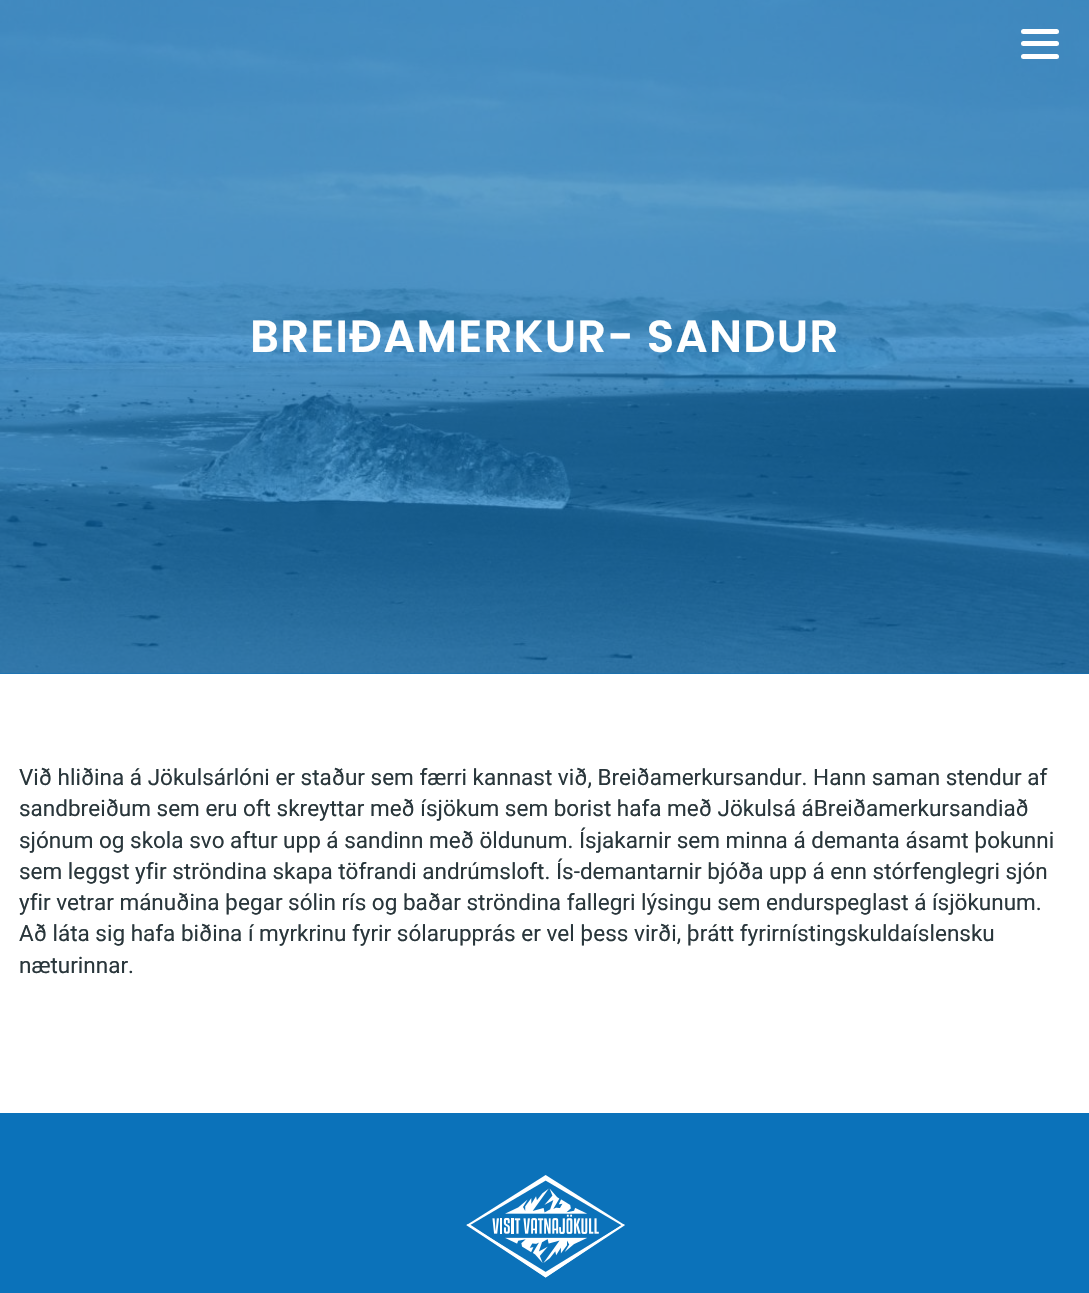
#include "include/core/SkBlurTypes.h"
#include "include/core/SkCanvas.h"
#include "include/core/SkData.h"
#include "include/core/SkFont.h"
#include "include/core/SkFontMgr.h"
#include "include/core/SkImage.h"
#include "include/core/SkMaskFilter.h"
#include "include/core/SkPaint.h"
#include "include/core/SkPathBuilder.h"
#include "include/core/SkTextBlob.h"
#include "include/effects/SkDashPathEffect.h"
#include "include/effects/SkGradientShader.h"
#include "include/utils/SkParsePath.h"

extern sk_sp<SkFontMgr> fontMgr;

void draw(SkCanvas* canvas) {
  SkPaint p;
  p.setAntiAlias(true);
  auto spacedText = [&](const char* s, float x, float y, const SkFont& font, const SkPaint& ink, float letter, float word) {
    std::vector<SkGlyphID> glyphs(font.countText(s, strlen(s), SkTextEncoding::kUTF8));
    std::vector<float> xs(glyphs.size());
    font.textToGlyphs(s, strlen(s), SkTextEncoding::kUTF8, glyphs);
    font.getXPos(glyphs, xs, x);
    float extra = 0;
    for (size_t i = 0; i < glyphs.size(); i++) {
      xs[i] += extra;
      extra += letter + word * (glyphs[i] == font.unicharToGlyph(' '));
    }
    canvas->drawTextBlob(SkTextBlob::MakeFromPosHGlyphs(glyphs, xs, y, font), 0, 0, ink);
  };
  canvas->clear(SK_ColorWHITE);
  p.setColor(SkColorSetRGB(11, 114, 186));
  canvas->drawRect(SkRect::MakeLTRB(0, 0, 1089, 674), p);
  canvas->drawImageRect(SkImages::DeferredFromEncodedData(SkData::MakeFromFileName("images/1.png")), SkRect::MakeLTRB(0, 0, 1089, 674), SkSamplingOptions());
  p.setColor(SK_ColorWHITE);
  canvas->drawRoundRect(SkRect::MakeLTRB(1021, 29, 1059, 34), 2.5f, 2.5f, p);
  canvas->drawRoundRect(SkRect::MakeLTRB(1021, 41, 1059, 46), 2.5f, 2.5f, p);
  canvas->drawRoundRect(SkRect::MakeLTRB(1021, 54, 1059, 59), 2.5f, 2.5f, p);
  p.setColor(SkColorSetRGB(11, 114, 186));
  canvas->drawRect(SkRect::MakeLTRB(0, 1113, 1089, 1293), p);
  canvas->drawImageRect(SkImages::DeferredFromEncodedData(SkData::MakeFromFileName("images/2.png")), SkRect::MakeLTRB(466, 1175, 625, 1278), SkSamplingOptions());
  SkFont font1(fontMgr->matchFamilyStyle("Poppins", SkFontStyle(600, SkFontStyle::kNormal_Width, SkFontStyle::kUpright_Slant)), 45);
  font1.setSubpixel(true);
  p.setColor(SK_ColorWHITE);
  spacedText("BREIÐAMERKUR- SANDUR", 250, 352, font1, p, 1.25f, 0);
  SkFont font2(fontMgr->matchFamilyStyle("Roboto", SkFontStyle::Normal()), 22.5f);
  font2.setSubpixel(true);
  p.setColor(SkColorSetRGB(41, 54, 59));
  canvas->drawString("Við hliðina á Jökulsárlóni er staður sem færri kannast við, Breiðamerkursandur. Hann saman stendur af", 19, 785, font2, p);
  canvas->drawString("sandbreiðum sem eru oft skreyttar með ísjökum sem borist hafa með Jökulsá á Breiðamerkursandi að", 19, 816, font2, p);
  canvas->drawString("sjónum og skola svo aftur upp á sandinn með öldunum. Ísjakarnir sem minna á demanta ásamt þokunni", 19, 848, font2, p);
  canvas->drawString("sem leggst yfir ströndina skapa töfrandi andrúmsloft. Ís-demantarnir bjóða upp á enn stórfenglegri sjón", 19, 879, font2, p);
  canvas->drawString("yfir vetrar mánuðina þegar sólin rís og baðar ströndina fallegri lýsingu sem endurspeglast á ísjökunum.", 19, 910, font2, p);
  canvas->drawString("Að láta sig hafa biðina í myrkrinu fyrir sólarupprás er vel þess virði, þrátt fyrir nístingskulda íslensku", 19, 941, font2, p);
  canvas->drawString("næturinnar.", 19, 973, font2, p);
}
